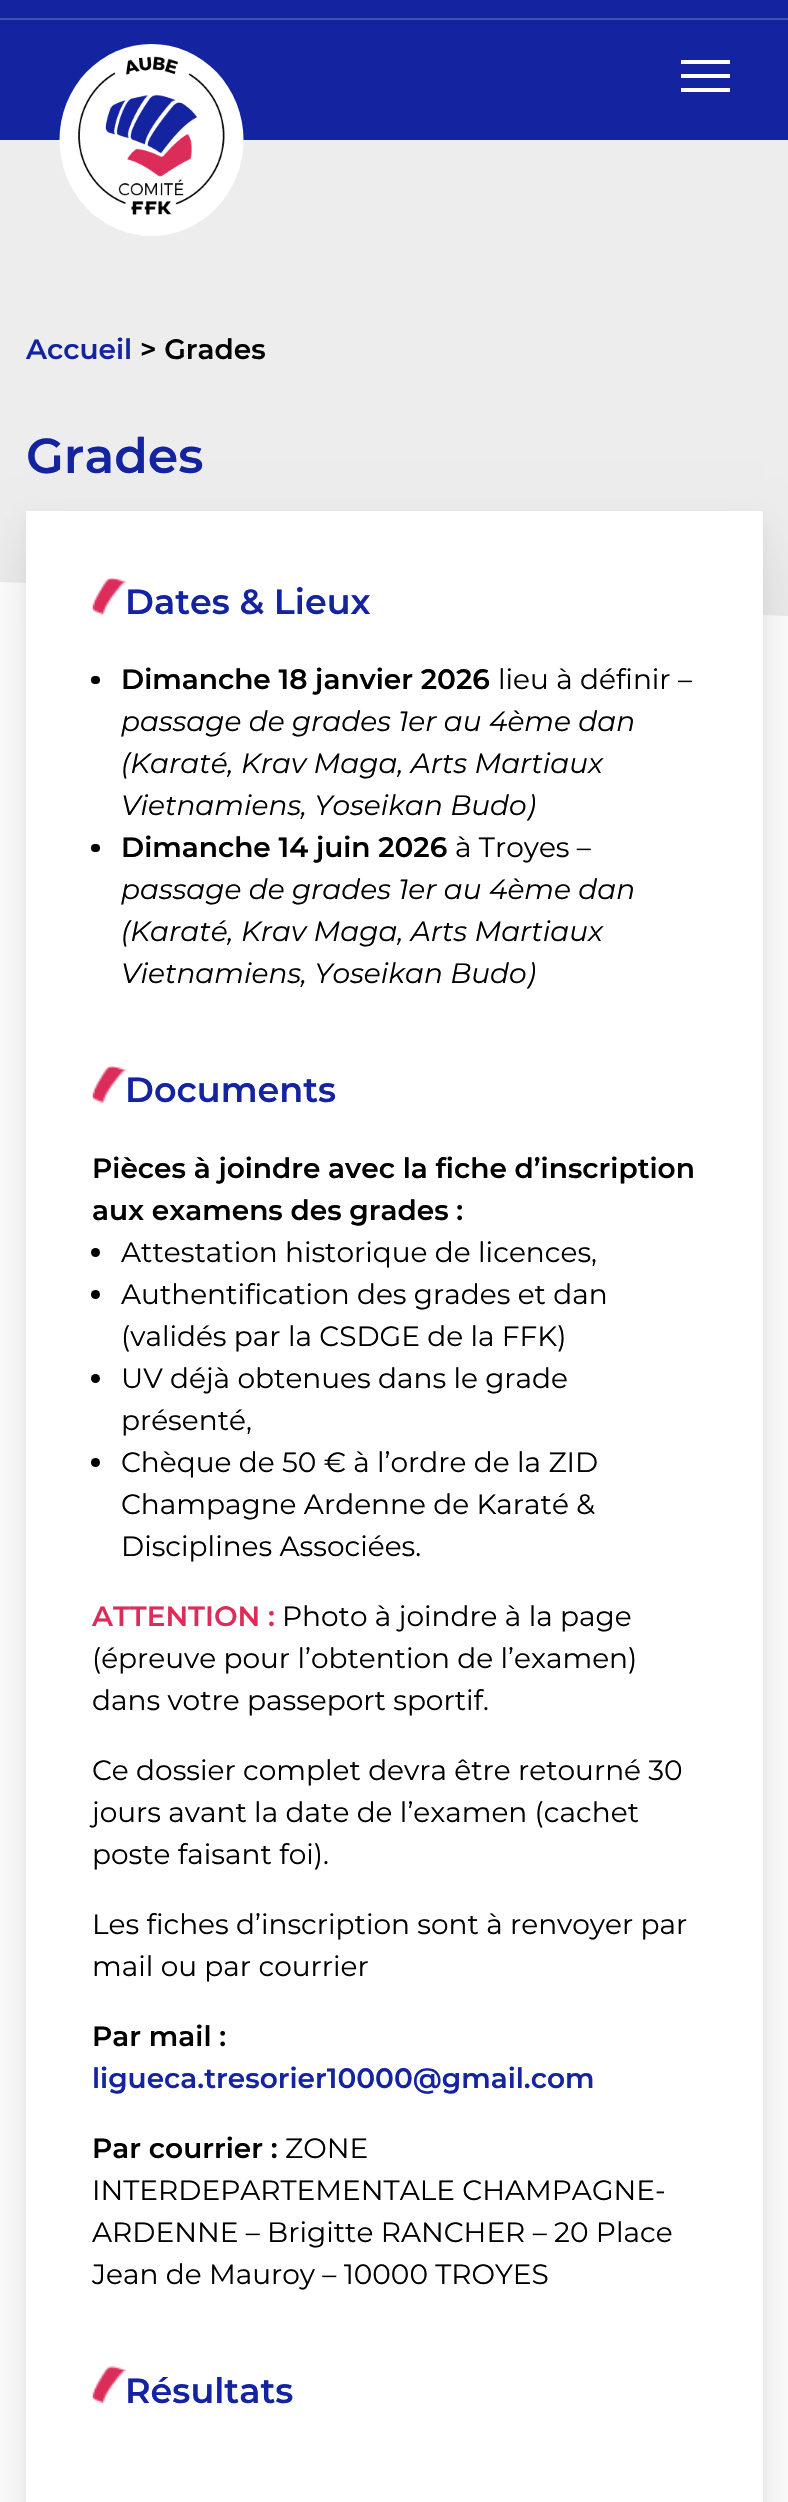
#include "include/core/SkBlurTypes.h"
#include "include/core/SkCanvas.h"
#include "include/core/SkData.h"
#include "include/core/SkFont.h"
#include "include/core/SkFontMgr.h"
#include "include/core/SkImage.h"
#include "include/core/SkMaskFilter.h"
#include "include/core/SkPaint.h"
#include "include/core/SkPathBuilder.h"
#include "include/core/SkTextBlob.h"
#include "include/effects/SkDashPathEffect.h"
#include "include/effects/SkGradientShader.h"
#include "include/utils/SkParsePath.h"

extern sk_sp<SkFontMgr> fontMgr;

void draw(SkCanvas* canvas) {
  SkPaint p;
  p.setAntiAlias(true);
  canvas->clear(SK_ColorWHITE);
  p.setColor(SkColorSetRGB(237, 237, 237));
  canvas->drawPath(SkPathBuilder().moveTo(0, -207).lineTo(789, -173).lineTo(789, 616).lineTo(0, 582).close().detach(), p);
  p.setColor(SkColorSetRGB(20, 35, 160));
  canvas->drawRect(SkRect::MakeLTRB(0, 0, 788, 140), p);
  p.setColor(SkColorSetRGB(67, 79, 179));
  canvas->drawRect(SkRect::MakeLTRB(0, 18, 788, 20), p);
  p.setColor(SK_ColorWHITE);
  canvas->drawOval(SkRect::MakeLTRB(59.5f, 44, 243.5f, 236), p);
  canvas->drawImageRect(SkImages::DeferredFromEncodedData(SkData::MakeFromFileName("images/1.png")), SkRect::MakeLTRB(78, 56, 225, 215), SkSamplingOptions());
  canvas->drawRect(SkRect::MakeLTRB(681, 74, 730, 78), p);
  canvas->drawRect(SkRect::MakeLTRB(681, 60, 730, 64), p);
  canvas->drawRect(SkRect::MakeLTRB(681, 88, 730, 92), p);
  p.setColor(SkColorSetARGB(26, 0, 0, 0));
  p.setMaskFilter(SkMaskFilter::MakeBlur(kNormal_SkBlurStyle, 31));
  canvas->drawRect(SkRect::MakeLTRB(26, 553, 763, 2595), p);
  p.setMaskFilter(nullptr);
  p.setColor(SkColorSetARGB(13, 0, 0, 0));
  p.setMaskFilter(SkMaskFilter::MakeBlur(kNormal_SkBlurStyle, 7));
  canvas->drawRect(SkRect::MakeLTRB(26, 518, 763, 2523), p);
  p.setMaskFilter(nullptr);
  p.setColor(SK_ColorWHITE);
  canvas->drawRect(SkRect::MakeLTRB(26, 511, 763, 2502), p);
  canvas->drawImageRect(SkImages::DeferredFromEncodedData(SkData::MakeFromFileName("images/2.png")), SkRect::MakeLTRB(92, 578, 126, 615), SkSamplingOptions());
  p.setColor(SK_ColorBLACK);
  canvas->drawRoundRect(SkRect::MakeLTRB(91, 676, 100, 684), 4, 4, p);
  canvas->drawRoundRect(SkRect::MakeLTRB(91, 844, 100, 852), 4, 4, p);
  canvas->drawImageRect(SkImages::DeferredFromEncodedData(SkData::MakeFromFileName("images/3.png")), SkRect::MakeLTRB(92, 1066, 126, 1103), SkSamplingOptions());
  canvas->drawCircle(95.5f, 1252.5f, 4.5f, p);
  canvas->drawCircle(95.5f, 1294.5f, 4.5f, p);
  canvas->drawCircle(95.5f, 1378.5f, 4.5f, p);
  canvas->drawCircle(95.5f, 1462.5f, 4.5f, p);
  canvas->drawImageRect(SkImages::DeferredFromEncodedData(SkData::MakeFromFileName("images/4.png")), SkRect::MakeLTRB(92, 2366, 126, 2403), SkSamplingOptions());
  SkFont font1(fontMgr->matchFamilyStyle("Montserrat", SkFontStyle(600, SkFontStyle::kNormal_Width, SkFontStyle::kUpright_Slant)), 28);
  font1.setSubpixel(true);
  p.setColor(SkColorSetRGB(20, 35, 160));
  canvas->drawString("Accueil", 26, 359, font1, p);
  p.setColor(SK_ColorBLACK);
  canvas->drawString("> Grades", 140, 359, font1, p);
  SkFont font2(fontMgr->matchFamilyStyle("Montserrat", SkFontStyle(600, SkFontStyle::kNormal_Width, SkFontStyle::kUpright_Slant)), 49);
  font2.setSubpixel(true);
  p.setColor(SkColorSetRGB(20, 35, 160));
  canvas->drawString("Grades", 26, 473, font2, p);
  SkFont font3(fontMgr->matchFamilyStyle("Montserrat", SkFontStyle(600, SkFontStyle::kNormal_Width, SkFontStyle::kUpright_Slant)), 35);
  font3.setSubpixel(true);
  canvas->drawString("Dates & Lieux", 125, 614, font3, p);
  p.setColor(SK_ColorBLACK);
  canvas->drawString("Dimanche 18 janvier 2026", 121, 689, font1, p);
  SkFont font4(fontMgr->matchFamilyStyle("Montserrat", SkFontStyle::Normal()), 28);
  font4.setSubpixel(true);
  canvas->drawString("lieu à définir –", 498, 689, font4, p);
  SkFont font5(fontMgr->matchFamilyStyle("Montserrat", SkFontStyle::Italic()), 28);
  font5.setSubpixel(true);
  canvas->drawString("passage de grades 1er au 4ème dan", 121, 731, font5, p);
  canvas->drawString("(Karaté, Krav Maga, Arts Martiaux", 121, 773, font5, p);
  canvas->drawString("Vietnamiens, Yoseikan Budo)", 121, 815, font5, p);
  canvas->drawString("Dimanche 14 juin 2026", 121, 857, font1, p);
  canvas->drawString("à Troyes –", 455, 857, font4, p);
  canvas->drawString("passage de grades 1er au 4ème dan", 121, 899, font5, p);
  canvas->drawString("(Karaté, Krav Maga, Arts Martiaux", 121, 941, font5, p);
  canvas->drawString("Vietnamiens, Yoseikan Budo)", 121, 983, font5, p);
  p.setColor(SkColorSetRGB(20, 35, 160));
  canvas->drawString("Documents", 125, 1102, font3, p);
  p.setColor(SK_ColorBLACK);
  canvas->drawString("Pièces à joindre avec la fiche d’inscription", 92, 1178, font1, p);
  canvas->drawString("aux examens des grades :", 92, 1220, font1, p);
  canvas->drawString("Attestation historique de licences,", 121, 1262, font4, p);
  canvas->drawString("Authentification des grades et dan", 121, 1304, font4, p);
  canvas->drawString("(validés par la CSDGE de la FFK)", 121, 1346, font4, p);
  canvas->drawString("UV déjà obtenues dans le grade", 121, 1388, font4, p);
  canvas->drawString("présenté,", 121, 1430, font4, p);
  canvas->drawString("Chèque de 50 € à l’ordre de la ZID", 121, 1472, font4, p);
  canvas->drawString("Champagne Ardenne de Karaté &", 121, 1514, font4, p);
  canvas->drawString("Disciplines Associées.", 121, 1556, font4, p);
  p.setColor(SkColorSetRGB(220, 45, 90));
  canvas->drawString("ATTENTION :", 92, 1626, font1, p);
  p.setColor(SK_ColorBLACK);
  canvas->drawString("Photo à joindre à la page", 282, 1626, font4, p);
  canvas->drawString("(épreuve pour l’obtention de l’examen)", 92, 1668, font4, p);
  canvas->drawString("dans votre passeport sportif.", 92, 1710, font4, p);
  canvas->drawString("Ce dossier complet devra être retourné 30", 92, 1780, font4, p);
  canvas->drawString("jours avant la date de l’examen (cachet", 92, 1822, font4, p);
  canvas->drawString("poste faisant foi).", 92, 1864, font4, p);
  canvas->drawString("Les fiches d’inscription sont à renvoyer par", 92, 1934, font4, p);
  canvas->drawString("mail ou par courrier", 92, 1976, font4, p);
  canvas->drawString("Par mail :", 92, 2046, font1, p);
  p.setColor(SkColorSetRGB(20, 35, 160));
  canvas->drawString("ligueca.tresorier10000@gmail.com", 92, 2088, font1, p);
  p.setColor(SK_ColorBLACK);
  canvas->drawString("Par courrier :", 92, 2158, font1, p);
  canvas->drawString("ZONE", 285, 2158, font4, p);
  canvas->drawString("INTERDEPARTEMENTALE CHAMPAGNE-", 92, 2200, font4, p);
  canvas->drawString("ARDENNE – Brigitte RANCHER – 20 Place", 92, 2242, font4, p);
  canvas->drawString("Jean de Mauroy – 10000 TROYES", 92, 2284, font4, p);
  p.setColor(SkColorSetRGB(20, 35, 160));
  canvas->drawString("Résultats", 125, 2403, font3, p);
}
